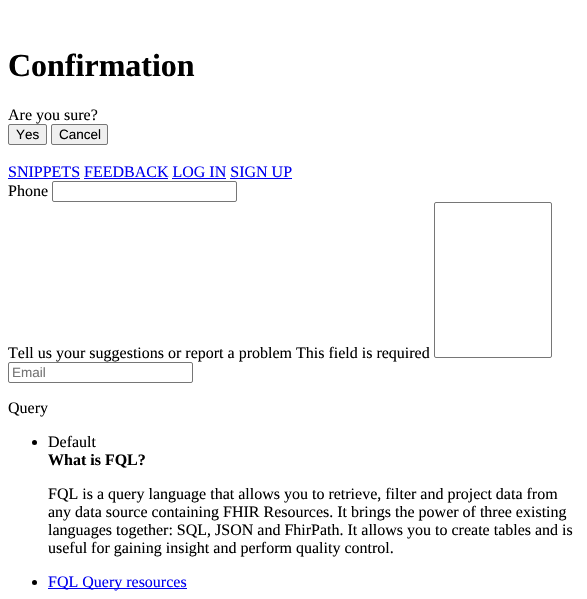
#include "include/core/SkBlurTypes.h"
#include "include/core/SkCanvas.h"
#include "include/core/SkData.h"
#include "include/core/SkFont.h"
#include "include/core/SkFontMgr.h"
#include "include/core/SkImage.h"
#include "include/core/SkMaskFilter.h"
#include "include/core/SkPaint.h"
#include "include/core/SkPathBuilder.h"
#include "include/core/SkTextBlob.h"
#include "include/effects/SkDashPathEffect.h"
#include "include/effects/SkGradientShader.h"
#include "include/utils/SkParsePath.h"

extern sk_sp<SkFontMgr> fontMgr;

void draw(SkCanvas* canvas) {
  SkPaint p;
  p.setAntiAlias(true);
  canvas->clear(SK_ColorWHITE);
  p.setColor(SkColorSetRGB(239, 239, 239));
  canvas->drawRoundRect(SkRect::MakeLTRB(8.5f, 124.5f, 46.5f, 144.5f), 1.5f, 1.5f, p);
  p.setStyle(SkPaint::kStroke_Style);
  p.setStrokeWidth(1);
  p.setColor(SkColorSetRGB(118, 118, 118));
  canvas->drawRoundRect(SkRect::MakeLTRB(8.5f, 124.5f, 46.5f, 144.5f), 1.5f, 1.5f, p);
  p.setStyle(SkPaint::kFill_Style);
  p.setColor(SkColorSetRGB(239, 239, 239));
  canvas->drawRoundRect(SkRect::MakeLTRB(51.5f, 124.5f, 107.5f, 144.5f), 1.5f, 1.5f, p);
  p.setStyle(SkPaint::kStroke_Style);
  p.setColor(SkColorSetRGB(118, 118, 118));
  canvas->drawRoundRect(SkRect::MakeLTRB(51.5f, 124.5f, 107.5f, 144.5f), 1.5f, 1.5f, p);
  p.setStyle(SkPaint::kFill_Style);
  p.setColor(SkColorSetRGB(0, 0, 238));
  canvas->drawRect(SkRect::MakeLTRB(8, 178, 80, 179), p);
  canvas->drawRect(SkRect::MakeLTRB(84, 178, 168, 179), p);
  canvas->drawRect(SkRect::MakeLTRB(172, 178, 226, 179), p);
  canvas->drawRect(SkRect::MakeLTRB(230, 178, 292, 179), p);
  p.setStyle(SkPaint::kStroke_Style);
  p.setColor(SkColorSetRGB(118, 118, 118));
  canvas->drawRoundRect(SkRect::MakeLTRB(52.5f, 181.5f, 236.5f, 201.5f), 1.5f, 1.5f, p);
  canvas->drawRoundRect(SkRect::MakeLTRB(434.5f, 202.5f, 551.5f, 357.5f), 1.5f, 1.5f, p);
  canvas->drawRoundRect(SkRect::MakeLTRB(8.5f, 362.5f, 192.5f, 382.5f), 1.5f, 1.5f, p);
  p.setStyle(SkPaint::kFill_Style);
  p.setColor(SK_ColorBLACK);
  canvas->drawCircle(34.5f, 442.5f, 2.5f, p);
  canvas->drawCircle(34.5f, 582.5f, 2.5f, p);
  p.setColor(SkColorSetRGB(0, 0, 238));
  canvas->drawRect(SkRect::MakeLTRB(48, 588, 187, 589), p);
  SkFont font1(fontMgr->matchFamilyStyle("Liberation Serif", SkFontStyle::Bold()), 32);
  font1.setSubpixel(true);
  p.setColor(SK_ColorBLACK);
  canvas->drawString("Confirmation", 8, 76, font1, p);
  SkFont font2(fontMgr->matchFamilyStyle("Liberation Serif", SkFontStyle::Normal()), 16);
  font2.setSubpixel(true);
  canvas->drawString("Are you sure?", 8, 120, font2, p);
  SkFont font3(fontMgr->matchFamilyStyle("Liberation Sans", SkFontStyle::Normal()), 13.5f);
  font3.setSubpixel(true);
  canvas->drawString("Yes", 16, 139, font3, p);
  canvas->drawString("Cancel", 59, 139, font3, p);
  p.setColor(SkColorSetRGB(0, 0, 238));
  canvas->drawString("SNIPPETS FEEDBACK LOG IN SIGN UP", 8, 177, font2, p);
  p.setColor(SK_ColorBLACK);
  canvas->drawString("Phone", 8, 196, font2, p);
  canvas->drawString("Tell us your suggestions or report a problem This field is required", 8, 358, font2, p);
  p.setColor(SkColorSetRGB(117, 117, 117));
  canvas->drawString("Email", 12, 377, font3, p);
  p.setColor(SK_ColorBLACK);
  canvas->drawString("Query", 8, 413, font2, p);
  canvas->drawString("Default", 48, 447, font2, p);
  SkFont font4(fontMgr->matchFamilyStyle("Liberation Serif", SkFontStyle::Bold()), 16);
  font4.setSubpixel(true);
  canvas->drawString("What is FQL?", 48, 465, font4, p);
  canvas->drawString("FQL is a query language that allows you to retrieve, filter and project data from", 48, 499, font2, p);
  canvas->drawString("any data source containing FHIR Resources. It brings the power of three existing", 48, 517, font2, p);
  canvas->drawString("languages together: SQL, JSON and FhirPath. It allows you to create tables and is", 48, 535, font2, p);
  canvas->drawString("useful for gaining insight and perform quality control.", 48, 553, font2, p);
  p.setColor(SkColorSetRGB(0, 0, 238));
  canvas->drawString("FQL Query resources", 48, 587, font2, p);
}
